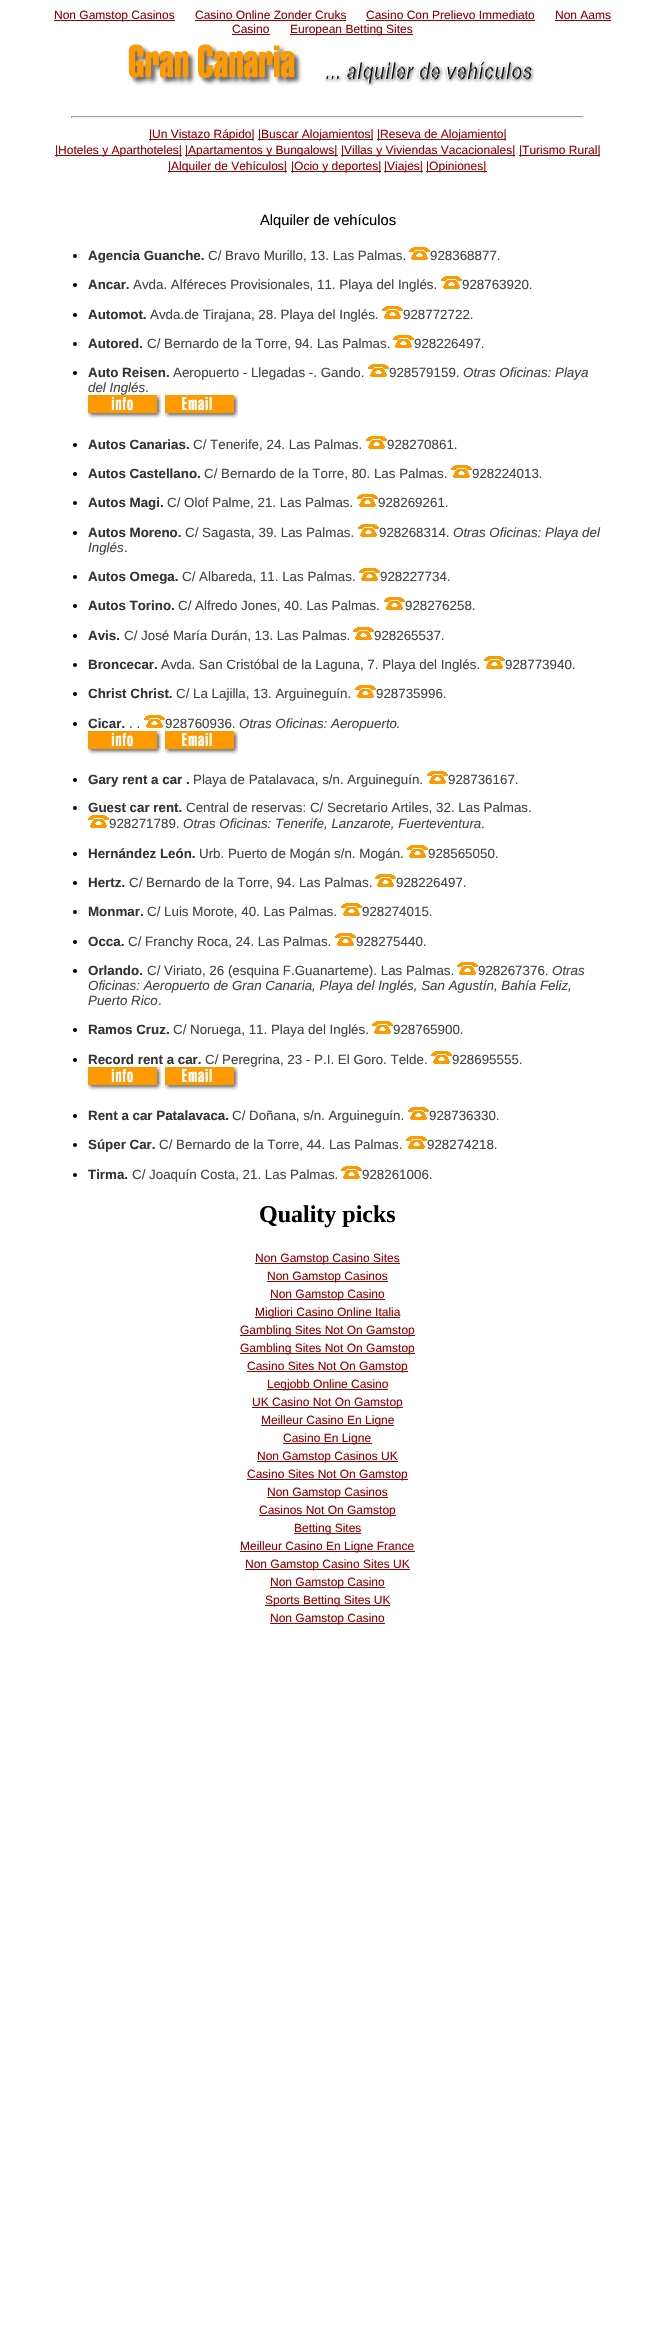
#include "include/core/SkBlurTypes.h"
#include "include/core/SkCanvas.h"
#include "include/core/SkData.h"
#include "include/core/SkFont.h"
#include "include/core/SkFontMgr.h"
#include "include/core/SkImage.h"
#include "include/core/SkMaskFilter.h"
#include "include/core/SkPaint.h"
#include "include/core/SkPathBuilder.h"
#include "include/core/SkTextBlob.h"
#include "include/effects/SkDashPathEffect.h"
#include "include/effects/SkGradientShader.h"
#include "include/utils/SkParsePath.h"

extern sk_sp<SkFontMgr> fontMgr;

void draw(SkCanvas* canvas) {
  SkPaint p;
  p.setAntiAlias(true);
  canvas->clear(SK_ColorWHITE);
  p.setColor(SkColorSetRGB(153, 0, 0));
  canvas->drawRect(SkRect::MakeLTRB(54, 20, 175, 21), p);
  canvas->drawRect(SkRect::MakeLTRB(195, 20, 346, 21), p);
  canvas->drawRect(SkRect::MakeLTRB(366, 20, 535, 21), p);
  canvas->drawRect(SkRect::MakeLTRB(555, 20, 611, 21), p);
  canvas->drawRect(SkRect::MakeLTRB(232, 34, 270, 35), p);
  canvas->drawRect(SkRect::MakeLTRB(290, 34, 413, 35), p);
  canvas->drawImageRect(SkImages::DeferredFromEncodedData(SkData::MakeFromFileName("images/1.png")), SkRect::MakeLTRB(128, 44, 302, 86), SkSamplingOptions());
  canvas->drawImageRect(SkImages::DeferredFromEncodedData(SkData::MakeFromFileName("images/2.png")), SkRect::MakeLTRB(324, 61, 535, 86), SkSamplingOptions());
  p.setColor(SkColorSetRGB(159, 159, 159));
  canvas->drawRect(SkRect::MakeLTRB(71, 116, 584, 117), p);
  p.setColor(SkColorSetRGB(238, 238, 238));
  canvas->drawRect(SkRect::MakeLTRB(583, 116, 584, 118), p);
  canvas->drawRect(SkRect::MakeLTRB(71, 117, 584, 118), p);
  p.setColor(SkColorSetRGB(159, 159, 159));
  canvas->drawRect(SkRect::MakeLTRB(71, 116, 72, 118), p);
  p.setColor(SkColorSetRGB(153, 0, 0));
  canvas->drawRect(SkRect::MakeLTRB(149, 139, 254, 140), p);
  canvas->drawRect(SkRect::MakeLTRB(258, 139, 373, 140), p);
  canvas->drawRect(SkRect::MakeLTRB(377, 139, 506, 140), p);
  canvas->drawRect(SkRect::MakeLTRB(55, 155, 182, 156), p);
  canvas->drawRect(SkRect::MakeLTRB(185, 155, 338, 156), p);
  canvas->drawRect(SkRect::MakeLTRB(341, 155, 515, 156), p);
  canvas->drawRect(SkRect::MakeLTRB(519, 155, 600, 156), p);
  canvas->drawRect(SkRect::MakeLTRB(168, 171, 287, 172), p);
  canvas->drawRect(SkRect::MakeLTRB(291, 171, 381, 172), p);
  canvas->drawRect(SkRect::MakeLTRB(384, 171, 423, 172), p);
  canvas->drawRect(SkRect::MakeLTRB(426, 171, 487, 172), p);
  p.setColor(SK_ColorBLACK);
  canvas->drawCircle(75, 256, 2, p);
  canvas->drawImageRect(SkImages::DeferredFromEncodedData(SkData::MakeFromFileName("images/3.png")), SkRect::MakeLTRB(409, 247, 430, 260), SkSamplingOptions());
  canvas->drawCircle(75, 285, 2, p);
  canvas->drawImageRect(SkImages::DeferredFromEncodedData(SkData::MakeFromFileName("images/3.png")), SkRect::MakeLTRB(441, 276, 462, 289), SkSamplingOptions());
  canvas->drawCircle(75, 315, 2, p);
  canvas->drawImageRect(SkImages::DeferredFromEncodedData(SkData::MakeFromFileName("images/3.png")), SkRect::MakeLTRB(382, 306, 403, 319), SkSamplingOptions());
  canvas->drawCircle(75, 344, 2, p);
  canvas->drawImageRect(SkImages::DeferredFromEncodedData(SkData::MakeFromFileName("images/3.png")), SkRect::MakeLTRB(393, 335, 414, 348), SkSamplingOptions());
  canvas->drawCircle(75, 373, 2, p);
  canvas->drawImageRect(SkImages::DeferredFromEncodedData(SkData::MakeFromFileName("images/3.png")), SkRect::MakeLTRB(368, 364, 389, 377), SkSamplingOptions());
  canvas->drawImageRect(SkImages::DeferredFromEncodedData(SkData::MakeFromFileName("images/4.png")), SkRect::MakeLTRB(88, 395, 161, 419), SkSamplingOptions());
  canvas->drawImageRect(SkImages::DeferredFromEncodedData(SkData::MakeFromFileName("images/5.png")), SkRect::MakeLTRB(165, 395, 238, 419), SkSamplingOptions());
  canvas->drawCircle(75, 445, 2, p);
  canvas->drawImageRect(SkImages::DeferredFromEncodedData(SkData::MakeFromFileName("images/3.png")), SkRect::MakeLTRB(366, 436, 387, 449), SkSamplingOptions());
  canvas->drawCircle(75, 474, 2, p);
  canvas->drawImageRect(SkImages::DeferredFromEncodedData(SkData::MakeFromFileName("images/3.png")), SkRect::MakeLTRB(451, 465, 472, 478), SkSamplingOptions());
  canvas->drawCircle(75, 503, 2, p);
  canvas->drawImageRect(SkImages::DeferredFromEncodedData(SkData::MakeFromFileName("images/3.png")), SkRect::MakeLTRB(357, 494, 378, 507), SkSamplingOptions());
  canvas->drawCircle(75, 533, 2, p);
  canvas->drawImageRect(SkImages::DeferredFromEncodedData(SkData::MakeFromFileName("images/3.png")), SkRect::MakeLTRB(358, 524, 379, 537), SkSamplingOptions());
  canvas->drawCircle(75, 577, 2, p);
  canvas->drawImageRect(SkImages::DeferredFromEncodedData(SkData::MakeFromFileName("images/3.png")), SkRect::MakeLTRB(359, 568, 380, 581), SkSamplingOptions());
  canvas->drawCircle(75, 606, 2, p);
  canvas->drawImageRect(SkImages::DeferredFromEncodedData(SkData::MakeFromFileName("images/3.png")), SkRect::MakeLTRB(384, 597, 405, 610), SkSamplingOptions());
  canvas->drawCircle(75, 636, 2, p);
  canvas->drawImageRect(SkImages::DeferredFromEncodedData(SkData::MakeFromFileName("images/3.png")), SkRect::MakeLTRB(353, 627, 374, 640), SkSamplingOptions());
  canvas->drawCircle(75, 665, 2, p);
  canvas->drawImageRect(SkImages::DeferredFromEncodedData(SkData::MakeFromFileName("images/3.png")), SkRect::MakeLTRB(484, 656, 505, 669), SkSamplingOptions());
  canvas->drawCircle(75, 694, 2, p);
  canvas->drawImageRect(SkImages::DeferredFromEncodedData(SkData::MakeFromFileName("images/3.png")), SkRect::MakeLTRB(355, 685, 376, 698), SkSamplingOptions());
  canvas->drawCircle(75, 724, 2, p);
  canvas->drawImageRect(SkImages::DeferredFromEncodedData(SkData::MakeFromFileName("images/3.png")), SkRect::MakeLTRB(144, 715, 165, 728), SkSamplingOptions());
  canvas->drawImageRect(SkImages::DeferredFromEncodedData(SkData::MakeFromFileName("images/4.png")), SkRect::MakeLTRB(88, 731, 161, 755), SkSamplingOptions());
  canvas->drawImageRect(SkImages::DeferredFromEncodedData(SkData::MakeFromFileName("images/5.png")), SkRect::MakeLTRB(165, 731, 238, 755), SkSamplingOptions());
  canvas->drawCircle(75, 780, 2, p);
  canvas->drawImageRect(SkImages::DeferredFromEncodedData(SkData::MakeFromFileName("images/3.png")), SkRect::MakeLTRB(427, 771, 448, 784), SkSamplingOptions());
  canvas->drawCircle(75, 808, 2, p);
  canvas->drawImageRect(SkImages::DeferredFromEncodedData(SkData::MakeFromFileName("images/3.png")), SkRect::MakeLTRB(88, 815, 109, 828), SkSamplingOptions());
  canvas->drawCircle(75, 854, 2, p);
  canvas->drawImageRect(SkImages::DeferredFromEncodedData(SkData::MakeFromFileName("images/3.png")), SkRect::MakeLTRB(407, 845, 428, 858), SkSamplingOptions());
  canvas->drawCircle(75, 883, 2, p);
  canvas->drawImageRect(SkImages::DeferredFromEncodedData(SkData::MakeFromFileName("images/3.png")), SkRect::MakeLTRB(375, 874, 396, 887), SkSamplingOptions());
  canvas->drawCircle(75, 912, 2, p);
  canvas->drawImageRect(SkImages::DeferredFromEncodedData(SkData::MakeFromFileName("images/3.png")), SkRect::MakeLTRB(341, 903, 362, 916), SkSamplingOptions());
  canvas->drawCircle(75, 942, 2, p);
  canvas->drawImageRect(SkImages::DeferredFromEncodedData(SkData::MakeFromFileName("images/3.png")), SkRect::MakeLTRB(335, 933, 356, 946), SkSamplingOptions());
  canvas->drawCircle(75, 971, 2, p);
  canvas->drawImageRect(SkImages::DeferredFromEncodedData(SkData::MakeFromFileName("images/3.png")), SkRect::MakeLTRB(457, 962, 478, 975), SkSamplingOptions());
  canvas->drawCircle(75, 1030, 2, p);
  canvas->drawImageRect(SkImages::DeferredFromEncodedData(SkData::MakeFromFileName("images/3.png")), SkRect::MakeLTRB(372, 1021, 393, 1034), SkSamplingOptions());
  canvas->drawCircle(75, 1060, 2, p);
  canvas->drawImageRect(SkImages::DeferredFromEncodedData(SkData::MakeFromFileName("images/3.png")), SkRect::MakeLTRB(431, 1051, 452, 1064), SkSamplingOptions());
  canvas->drawImageRect(SkImages::DeferredFromEncodedData(SkData::MakeFromFileName("images/4.png")), SkRect::MakeLTRB(88, 1067, 161, 1091), SkSamplingOptions());
  canvas->drawImageRect(SkImages::DeferredFromEncodedData(SkData::MakeFromFileName("images/5.png")), SkRect::MakeLTRB(165, 1067, 238, 1091), SkSamplingOptions());
  canvas->drawCircle(75, 1116, 2, p);
  canvas->drawImageRect(SkImages::DeferredFromEncodedData(SkData::MakeFromFileName("images/3.png")), SkRect::MakeLTRB(408, 1107, 429, 1120), SkSamplingOptions());
  canvas->drawCircle(75, 1145, 2, p);
  canvas->drawImageRect(SkImages::DeferredFromEncodedData(SkData::MakeFromFileName("images/3.png")), SkRect::MakeLTRB(406, 1136, 427, 1149), SkSamplingOptions());
  canvas->drawCircle(75, 1175, 2, p);
  canvas->drawImageRect(SkImages::DeferredFromEncodedData(SkData::MakeFromFileName("images/3.png")), SkRect::MakeLTRB(341, 1166, 362, 1179), SkSamplingOptions());
  p.setColor(SkColorSetRGB(153, 0, 0));
  canvas->drawRect(SkRect::MakeLTRB(255, 1263, 400, 1264), p);
  canvas->drawRect(SkRect::MakeLTRB(267, 1281, 388, 1282), p);
  canvas->drawRect(SkRect::MakeLTRB(270, 1299, 385, 1300), p);
  canvas->drawRect(SkRect::MakeLTRB(255, 1317, 400, 1318), p);
  canvas->drawRect(SkRect::MakeLTRB(240, 1335, 415, 1336), p);
  canvas->drawRect(SkRect::MakeLTRB(240, 1353, 415, 1354), p);
  canvas->drawRect(SkRect::MakeLTRB(247, 1371, 408, 1372), p);
  canvas->drawRect(SkRect::MakeLTRB(267, 1389, 388, 1390), p);
  canvas->drawRect(SkRect::MakeLTRB(252, 1407, 403, 1408), p);
  canvas->drawRect(SkRect::MakeLTRB(261, 1425, 394, 1426), p);
  canvas->drawRect(SkRect::MakeLTRB(283, 1443, 372, 1444), p);
  canvas->drawRect(SkRect::MakeLTRB(257, 1461, 398, 1462), p);
  canvas->drawRect(SkRect::MakeLTRB(247, 1479, 408, 1480), p);
  canvas->drawRect(SkRect::MakeLTRB(267, 1497, 388, 1498), p);
  canvas->drawRect(SkRect::MakeLTRB(259, 1515, 396, 1516), p);
  canvas->drawRect(SkRect::MakeLTRB(294, 1533, 361, 1534), p);
  canvas->drawRect(SkRect::MakeLTRB(240, 1551, 415, 1552), p);
  canvas->drawRect(SkRect::MakeLTRB(245, 1569, 410, 1570), p);
  canvas->drawRect(SkRect::MakeLTRB(270, 1587, 385, 1588), p);
  canvas->drawRect(SkRect::MakeLTRB(265, 1605, 390, 1606), p);
  canvas->drawRect(SkRect::MakeLTRB(270, 1623, 385, 1624), p);
  SkFont font1(fontMgr->matchFamilyStyle("Liberation Sans", SkFontStyle::Normal()), 12);
  font1.setSubpixel(true);
  canvas->drawString("Non Gamstop Casinos", 54, 19, font1, p);
  canvas->drawString("Casino Online Zonder Cruks", 195, 19, font1, p);
  canvas->drawString("Casino Con Prelievo Immediato", 366, 19, font1, p);
  canvas->drawString("Non Aams", 555, 19, font1, p);
  canvas->drawString("Casino", 232, 33, font1, p);
  canvas->drawString("European Betting Sites", 290, 33, font1, p);
  canvas->drawString("|Un Vistazo Rápido|", 149, 138, font1, p);
  canvas->drawString("|Buscar Alojamientos|", 258, 138, font1, p);
  canvas->drawString("|Reseva de Alojamiento|", 377, 138, font1, p);
  canvas->drawString("|Hoteles y Aparthoteles|", 55, 154, font1, p);
  canvas->drawString("|Apartamentos y Bungalows|", 185, 154, font1, p);
  canvas->drawString("|Villas y Viviendas Vacacionales|", 341, 154, font1, p);
  canvas->drawString("|Turismo Rural|", 519, 154, font1, p);
  canvas->drawString("|Alquiler de Vehículos|", 168, 170, font1, p);
  canvas->drawString("|Ocio y deportes|", 291, 170, font1, p);
  canvas->drawString("|Viajes|", 384, 170, font1, p);
  canvas->drawString("|Opiniones|", 426, 170, font1, p);
  SkFont font2(fontMgr->matchFamilyStyle("Liberation Sans", SkFontStyle::Normal()), 14.75f);
  font2.setSubpixel(true);
  p.setColor(SK_ColorBLACK);
  canvas->drawString("Alquiler de vehículos", 260, 225, font2, p);
  SkFont font3(fontMgr->matchFamilyStyle("Liberation Sans", SkFontStyle::Bold()), 13.35f);
  font3.setSubpixel(true);
  p.setColor(SkColorSetRGB(51, 51, 51));
  canvas->drawString("Agencia Guanche.", 88, 260, font3, p);
  SkFont font4(fontMgr->matchFamilyStyle("Liberation Sans", SkFontStyle::Normal()), 13.35f);
  font4.setSubpixel(true);
  p.setColor(SkColorSetRGB(68, 68, 68));
  canvas->drawString("C/ Bravo Murillo, 13. Las Palmas.", 208, 260, font4, p);
  canvas->drawString("928368877.", 430, 260, font4, p);
  p.setColor(SkColorSetRGB(51, 51, 51));
  canvas->drawString("Ancar.", 88, 289, font3, p);
  p.setColor(SkColorSetRGB(68, 68, 68));
  canvas->drawString("Avda. Alféreces Provisionales, 11. Playa del Inglés.", 133, 289, font4, p);
  canvas->drawString("928763920.", 462, 289, font4, p);
  p.setColor(SkColorSetRGB(51, 51, 51));
  canvas->drawString("Automot.", 88, 319, font3, p);
  p.setColor(SkColorSetRGB(68, 68, 68));
  canvas->drawString("Avda.de Tirajana, 28. Playa del Inglés.", 150, 319, font4, p);
  canvas->drawString("928772722.", 403, 319, font4, p);
  p.setColor(SkColorSetRGB(51, 51, 51));
  canvas->drawString("Autored.", 88, 348, font3, p);
  p.setColor(SkColorSetRGB(68, 68, 68));
  canvas->drawString("C/ Bernardo de la Torre, 94. Las Palmas.", 147, 348, font4, p);
  canvas->drawString("928226497.", 414, 348, font4, p);
  p.setColor(SkColorSetRGB(51, 51, 51));
  canvas->drawString("Auto Reisen.", 88, 377, font3, p);
  p.setColor(SkColorSetRGB(68, 68, 68));
  canvas->drawString("Aeropuerto - Llegadas -. Gando.", 173, 377, font4, p);
  canvas->drawString("928579159.", 389, 377, font4, p);
  SkFont font5(fontMgr->matchFamilyStyle("Liberation Sans", SkFontStyle::Italic()), 13.35f);
  font5.setSubpixel(true);
  canvas->drawString("Otras Oficinas: Playa", 463, 377, font5, p);
  canvas->drawString("del Inglés", 88, 392, font5, p);
  canvas->drawString(".", 145, 392, font4, p);
  p.setColor(SkColorSetRGB(51, 51, 51));
  canvas->drawString("Autos Canarias.", 88, 449, font3, p);
  p.setColor(SkColorSetRGB(68, 68, 68));
  canvas->drawString("C/ Tenerife, 24. Las Palmas.", 193, 449, font4, p);
  canvas->drawString("928270861.", 387, 449, font4, p);
  p.setColor(SkColorSetRGB(51, 51, 51));
  canvas->drawString("Autos Castellano.", 88, 478, font3, p);
  p.setColor(SkColorSetRGB(68, 68, 68));
  canvas->drawString("C/ Bernardo de la Torre, 80. Las Palmas.", 204, 478, font4, p);
  canvas->drawString("928224013.", 472, 478, font4, p);
  p.setColor(SkColorSetRGB(51, 51, 51));
  canvas->drawString("Autos Magi.", 88, 507, font3, p);
  p.setColor(SkColorSetRGB(68, 68, 68));
  canvas->drawString("C/ Olof Palme, 21. Las Palmas.", 167, 507, font4, p);
  canvas->drawString("928269261.", 378, 507, font4, p);
  p.setColor(SkColorSetRGB(51, 51, 51));
  canvas->drawString("Autos Moreno.", 88, 537, font3, p);
  p.setColor(SkColorSetRGB(68, 68, 68));
  canvas->drawString("C/ Sagasta, 39. Las Palmas.", 185, 537, font4, p);
  canvas->drawString("928268314.", 379, 537, font4, p);
  canvas->drawString("Otras Oficinas: Playa del", 453, 537, font5, p);
  canvas->drawString("Inglés", 88, 552, font5, p);
  canvas->drawString(".", 124, 552, font4, p);
  p.setColor(SkColorSetRGB(51, 51, 51));
  canvas->drawString("Autos Omega.", 88, 581, font3, p);
  p.setColor(SkColorSetRGB(68, 68, 68));
  canvas->drawString("C/ Albareda, 11. Las Palmas.", 182, 581, font4, p);
  canvas->drawString("928227734.", 380, 581, font4, p);
  p.setColor(SkColorSetRGB(51, 51, 51));
  canvas->drawString("Autos Torino.", 88, 610, font3, p);
  p.setColor(SkColorSetRGB(68, 68, 68));
  canvas->drawString("C/ Alfredo Jones, 40. Las Palmas.", 178, 610, font4, p);
  canvas->drawString("928276258.", 405, 610, font4, p);
  p.setColor(SkColorSetRGB(51, 51, 51));
  canvas->drawString("Avis.", 88, 640, font3, p);
  p.setColor(SkColorSetRGB(68, 68, 68));
  canvas->drawString("C/ José María Durán, 13. Las Palmas.", 124, 640, font4, p);
  canvas->drawString("928265537.", 374, 640, font4, p);
  p.setColor(SkColorSetRGB(51, 51, 51));
  canvas->drawString("Broncecar.", 88, 669, font3, p);
  p.setColor(SkColorSetRGB(68, 68, 68));
  canvas->drawString("Avda. San Cristóbal de la Laguna, 7. Playa del Inglés.", 161, 669, font4, p);
  canvas->drawString("928773940.", 505, 669, font4, p);
  p.setColor(SkColorSetRGB(51, 51, 51));
  canvas->drawString("Christ Christ.", 88, 698, font3, p);
  p.setColor(SkColorSetRGB(68, 68, 68));
  canvas->drawString("C/ La Lajilla, 13. Arguineguín.", 176, 698, font4, p);
  canvas->drawString("928735996.", 376, 698, font4, p);
  p.setColor(SkColorSetRGB(51, 51, 51));
  canvas->drawString("Cicar.", 88, 728, font3, p);
  p.setColor(SkColorSetRGB(68, 68, 68));
  canvas->drawString(". .", 129, 728, font4, p);
  canvas->drawString("928760936.", 165, 728, font4, p);
  canvas->drawString("Otras Oficinas: Aeropuerto", 239, 728, font5, p);
  canvas->drawString(".", 396, 728, font4, p);
  p.setColor(SkColorSetRGB(51, 51, 51));
  canvas->drawString("Gary rent a car .", 88, 784, font3, p);
  p.setColor(SkColorSetRGB(68, 68, 68));
  canvas->drawString("Playa de Patalavaca, s/n. Arguineguín.", 193, 784, font4, p);
  canvas->drawString("928736167.", 448, 784, font4, p);
  p.setColor(SkColorSetRGB(51, 51, 51));
  canvas->drawString("Guest car rent.", 88, 812, font3, p);
  p.setColor(SkColorSetRGB(68, 68, 68));
  canvas->drawString("Central de reservas: C/ Secretario Artiles, 32. Las Palmas.", 186, 812, font4, p);
  canvas->drawString("928271789.", 109, 828, font4, p);
  canvas->drawString("Otras Oficinas: Tenerife, Lanzarote, Fuerteventura", 183, 828, font5, p);
  canvas->drawString(".", 481, 828, font4, p);
  p.setColor(SkColorSetRGB(51, 51, 51));
  canvas->drawString("Hernández León.", 88, 858, font3, p);
  p.setColor(SkColorSetRGB(68, 68, 68));
  canvas->drawString("Urb. Puerto de Mogán s/n. Mogán.", 199, 858, font4, p);
  canvas->drawString("928565050.", 428, 858, font4, p);
  p.setColor(SkColorSetRGB(51, 51, 51));
  canvas->drawString("Hertz.", 88, 887, font3, p);
  p.setColor(SkColorSetRGB(68, 68, 68));
  canvas->drawString("C/ Bernardo de la Torre, 94. Las Palmas.", 129, 887, font4, p);
  canvas->drawString("928226497.", 396, 887, font4, p);
  p.setColor(SkColorSetRGB(51, 51, 51));
  canvas->drawString("Monmar.", 88, 916, font3, p);
  p.setColor(SkColorSetRGB(68, 68, 68));
  canvas->drawString("C/ Luis Morote, 40. Las Palmas.", 147, 916, font4, p);
  canvas->drawString("928274015.", 362, 916, font4, p);
  p.setColor(SkColorSetRGB(51, 51, 51));
  canvas->drawString("Occa.", 88, 946, font3, p);
  p.setColor(SkColorSetRGB(68, 68, 68));
  canvas->drawString("C/ Franchy Roca, 24. Las Palmas.", 128, 946, font4, p);
  canvas->drawString("928275440.", 356, 946, font4, p);
  p.setColor(SkColorSetRGB(51, 51, 51));
  canvas->drawString("Orlando.", 88, 975, font3, p);
  p.setColor(SkColorSetRGB(68, 68, 68));
  canvas->drawString("C/ Viriato, 26 (esquina F.Guanarteme). Las Palmas.", 147, 975, font4, p);
  canvas->drawString("928267376.", 478, 975, font4, p);
  canvas->drawString("Otras", 552, 975, font5, p);
  canvas->drawString("Oficinas: Aeropuerto de Gran Canaria, Playa del Inglés, San Agustín, Bahía Feliz,", 88, 990, font5, p);
  canvas->drawString("Puerto Rico", 88, 1005, font5, p);
  canvas->drawString(".", 158, 1005, font4, p);
  p.setColor(SkColorSetRGB(51, 51, 51));
  canvas->drawString("Ramos Cruz.", 88, 1034, font3, p);
  p.setColor(SkColorSetRGB(68, 68, 68));
  canvas->drawString("C/ Noruega, 11. Playa del Inglés.", 173, 1034, font4, p);
  canvas->drawString("928765900.", 393, 1034, font4, p);
  p.setColor(SkColorSetRGB(51, 51, 51));
  canvas->drawString("Record rent a car.", 88, 1064, font3, p);
  p.setColor(SkColorSetRGB(68, 68, 68));
  canvas->drawString("C/ Peregrina, 23 - P.I. El Goro. Telde.", 205, 1064, font4, p);
  canvas->drawString("928695555.", 452, 1064, font4, p);
  p.setColor(SkColorSetRGB(51, 51, 51));
  canvas->drawString("Rent a car Patalavaca.", 88, 1120, font3, p);
  p.setColor(SkColorSetRGB(68, 68, 68));
  canvas->drawString("C/ Doñana, s/n. Arguineguín.", 232, 1120, font4, p);
  canvas->drawString("928736330.", 429, 1120, font4, p);
  p.setColor(SkColorSetRGB(51, 51, 51));
  canvas->drawString("Súper Car.", 88, 1149, font3, p);
  p.setColor(SkColorSetRGB(68, 68, 68));
  canvas->drawString("C/ Bernardo de la Torre, 44. Las Palmas.", 159, 1149, font4, p);
  canvas->drawString("928274218.", 427, 1149, font4, p);
  p.setColor(SkColorSetRGB(51, 51, 51));
  canvas->drawString("Tirma.", 88, 1179, font3, p);
  p.setColor(SkColorSetRGB(68, 68, 68));
  canvas->drawString("C/ Joaquín Costa, 21. Las Palmas.", 132, 1179, font4, p);
  canvas->drawString("928261006.", 362, 1179, font4, p);
  SkFont font6(fontMgr->matchFamilyStyle("Liberation Serif", SkFontStyle::Bold()), 24);
  font6.setSubpixel(true);
  p.setColor(SK_ColorBLACK);
  canvas->drawString("Quality picks", 259, 1222, font6, p);
  p.setColor(SkColorSetRGB(153, 0, 0));
  canvas->drawString("Non Gamstop Casino Sites", 255, 1262, font1, p);
  canvas->drawString("Non Gamstop Casinos", 267, 1280, font1, p);
  canvas->drawString("Non Gamstop Casino", 270, 1298, font1, p);
  canvas->drawString("Migliori Casino Online Italia", 255, 1316, font1, p);
  canvas->drawString("Gambling Sites Not On Gamstop", 240, 1334, font1, p);
  canvas->drawString("Gambling Sites Not On Gamstop", 240, 1352, font1, p);
  canvas->drawString("Casino Sites Not On Gamstop", 247, 1370, font1, p);
  canvas->drawString("Legjobb Online Casino", 267, 1388, font1, p);
  canvas->drawString("UK Casino Not On Gamstop", 252, 1406, font1, p);
  canvas->drawString("Meilleur Casino En Ligne", 261, 1424, font1, p);
  canvas->drawString("Casino En Ligne", 283, 1442, font1, p);
  canvas->drawString("Non Gamstop Casinos UK", 257, 1460, font1, p);
  canvas->drawString("Casino Sites Not On Gamstop", 247, 1478, font1, p);
  canvas->drawString("Non Gamstop Casinos", 267, 1496, font1, p);
  canvas->drawString("Casinos Not On Gamstop", 259, 1514, font1, p);
  canvas->drawString("Betting Sites", 294, 1532, font1, p);
  canvas->drawString("Meilleur Casino En Ligne France", 240, 1550, font1, p);
  canvas->drawString("Non Gamstop Casino Sites UK", 245, 1568, font1, p);
  canvas->drawString("Non Gamstop Casino", 270, 1586, font1, p);
  canvas->drawString("Sports Betting Sites UK", 265, 1604, font1, p);
  canvas->drawString("Non Gamstop Casino", 270, 1622, font1, p);
}
